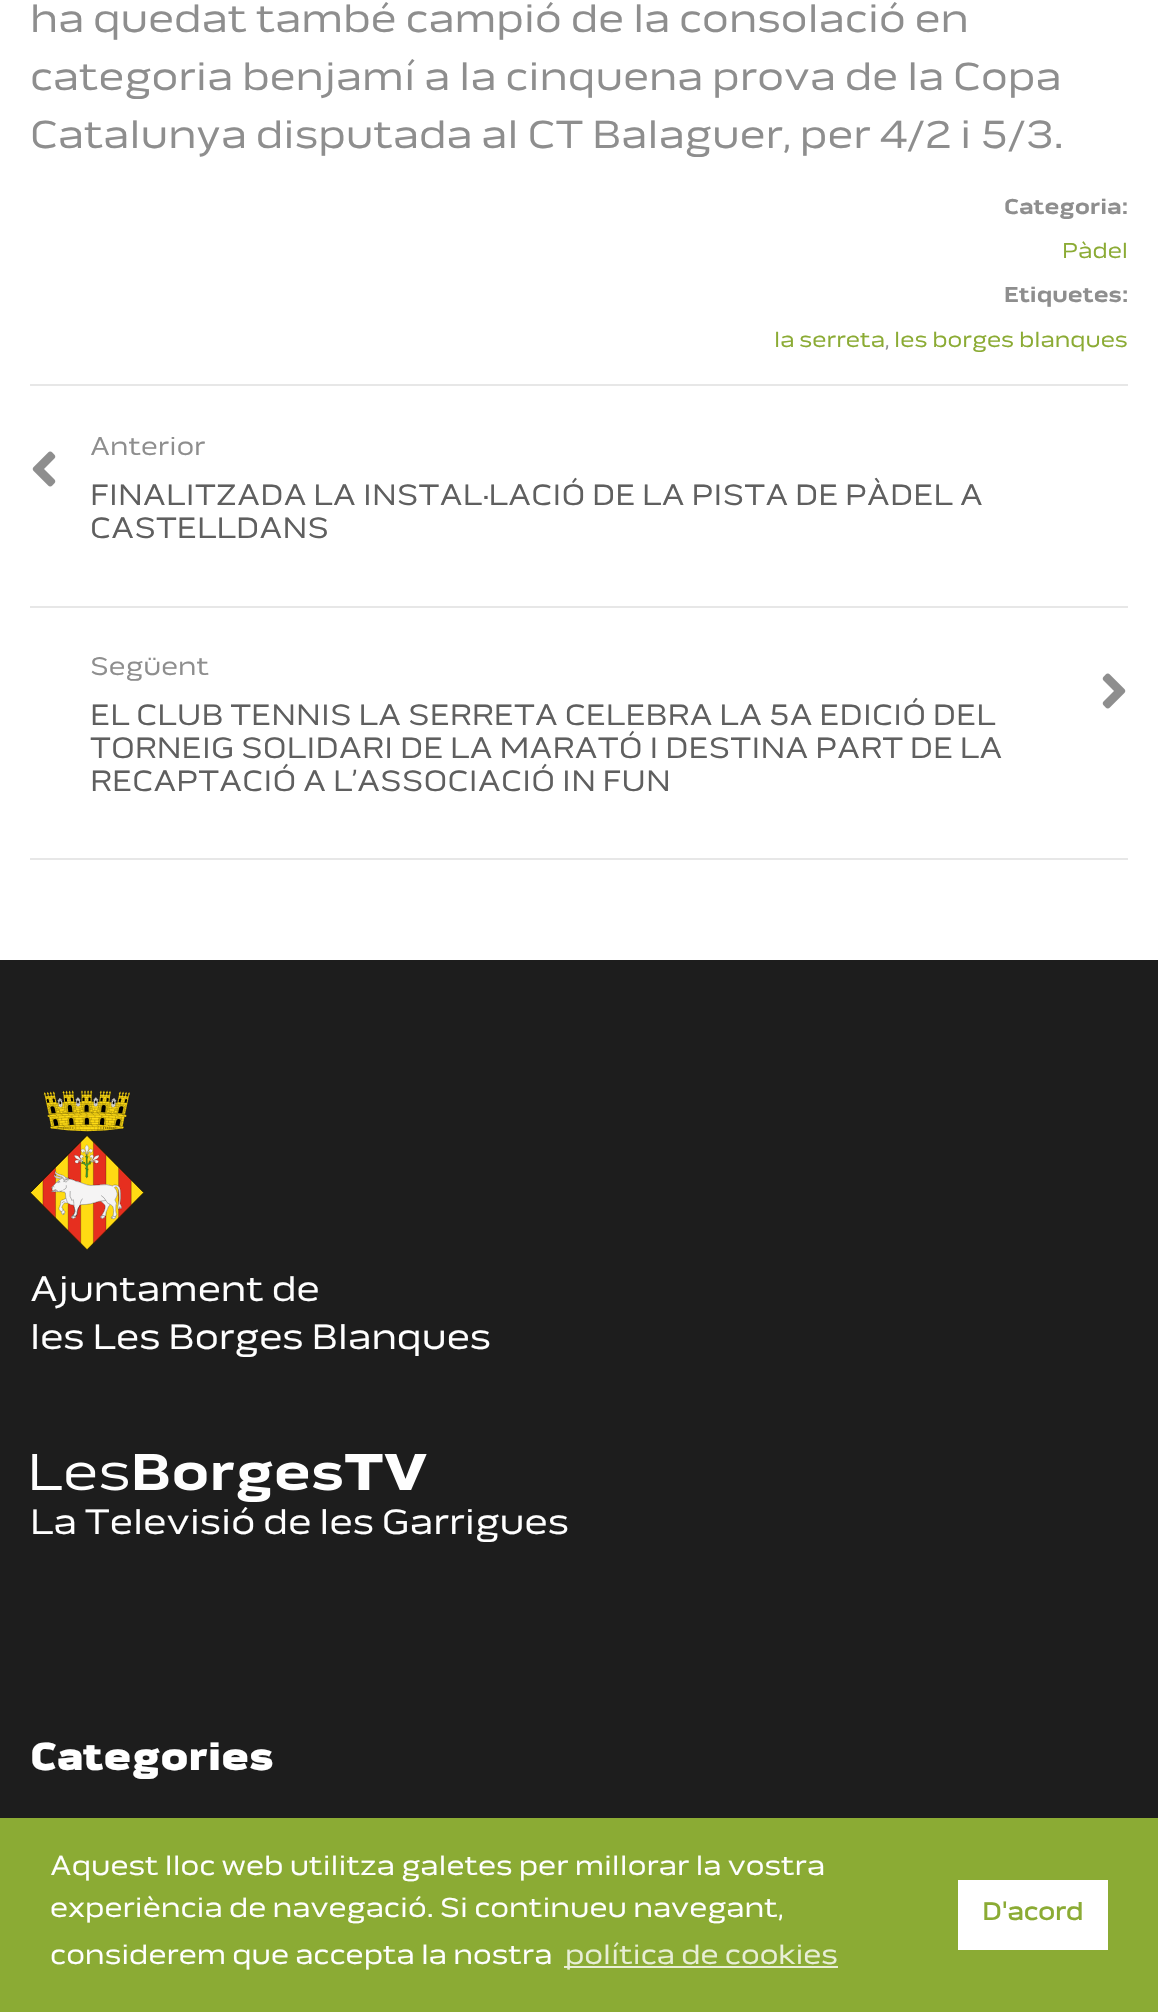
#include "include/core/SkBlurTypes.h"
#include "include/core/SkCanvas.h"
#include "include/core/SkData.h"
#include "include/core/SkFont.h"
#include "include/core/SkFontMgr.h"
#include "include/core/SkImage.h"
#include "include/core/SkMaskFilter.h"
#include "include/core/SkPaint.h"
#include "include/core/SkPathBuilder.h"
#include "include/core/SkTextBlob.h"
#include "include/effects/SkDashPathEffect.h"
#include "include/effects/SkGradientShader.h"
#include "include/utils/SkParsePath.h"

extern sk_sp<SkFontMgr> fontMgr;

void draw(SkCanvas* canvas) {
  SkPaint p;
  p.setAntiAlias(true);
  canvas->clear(SK_ColorWHITE);
  p.setColor(SkColorSetRGB(231, 231, 231));
  canvas->drawRect(SkRect::MakeLTRB(30, 384, 1128, 386), p);
  canvas->drawRect(SkRect::MakeLTRB(30, 606, 1128, 608), p);
  canvas->drawImageRect(SkImages::DeferredFromEncodedData(SkData::MakeFromFileName("images/1.png")), SkRect::MakeLTRB(32, 451, 56, 487), SkSamplingOptions());
  canvas->drawRect(SkRect::MakeLTRB(30, 858, 1128, 860), p);
  canvas->drawImageRect(SkImages::DeferredFromEncodedData(SkData::MakeFromFileName("images/2.png")), SkRect::MakeLTRB(1102, 673, 1126, 709), SkSamplingOptions());
  p.setColor(SkColorSetRGB(29, 29, 29));
  canvas->drawRect(SkRect::MakeLTRB(0, 960, 1158, 1818), p);
  canvas->drawImageRect(SkImages::DeferredFromEncodedData(SkData::MakeFromFileName("images/3.png")), SkRect::MakeLTRB(30, 1090, 144, 1250), SkSamplingOptions());
  canvas->drawImageRect(SkImages::DeferredFromEncodedData(SkData::MakeFromFileName("images/4.png")), SkRect::MakeLTRB(32, 1454, 427, 1502), SkSamplingOptions());
  p.setColor(SkColorSetRGB(139, 171, 52));
  canvas->drawRect(SkRect::MakeLTRB(0, 1818, 1158, 2012), p);
  p.setColor(SkColorSetRGB(232, 238, 214));
  canvas->drawRect(SkRect::MakeLTRB(564, 1966, 838, 1968), p);
  p.setColor(SK_ColorWHITE);
  canvas->drawRect(SkRect::MakeLTRB(958, 1880, 1108, 1950), p);
  SkFont font1(fontMgr->matchFamilyStyle("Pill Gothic", SkFontStyle::Normal()), 40);
  font1.setSubpixel(true);
  p.setColor(SkColorSetRGB(142, 142, 142));
  canvas->drawString("ha quedat també campió de la consolació en", 30, 32, font1, p);
  canvas->drawString("categoria benjamí a la cinquena prova de la Copa", 30, 90, font1, p);
  canvas->drawString("Catalunya disputada al CT Balaguer, per 4/2 i 5/3.", 30, 148, font1, p);
  SkFont font2(fontMgr->matchFamilyStyle("Pill Gothic", SkFontStyle::Bold()), 22);
  font2.setSubpixel(true);
  canvas->drawString("Categoria:", 1004, 214, font2, p);
  SkFont font3(fontMgr->matchFamilyStyle("Pill Gothic", SkFontStyle::Normal()), 22);
  font3.setSubpixel(true);
  p.setColor(SkColorSetRGB(139, 171, 52));
  canvas->drawString("Pàdel", 1062, 258, font3, p);
  p.setColor(SkColorSetRGB(142, 142, 142));
  canvas->drawString("Etiquetes:", 1004, 302, font2, p);
  p.setColor(SkColorSetRGB(139, 171, 52));
  canvas->drawString("la serreta", 774, 347, font3, p);
  p.setColor(SkColorSetRGB(142, 142, 142));
  canvas->drawString(",", 885, 347, font3, p);
  p.setColor(SkColorSetRGB(139, 171, 52));
  canvas->drawString("les borges blanques", 894, 347, font3, p);
  SkFont font4(fontMgr->matchFamilyStyle("Pill Gothic", SkFontStyle::Normal()), 26);
  font4.setSubpixel(true);
  p.setColor(SkColorSetRGB(142, 142, 142));
  canvas->drawString("Anterior", 90, 455, font4, p);
  SkFont font5(fontMgr->matchFamilyStyle("Pill Gothic", SkFontStyle::Normal()), 30);
  font5.setSubpixel(true);
  p.setColor(SkColorSetRGB(95, 95, 95));
  canvas->drawString("FINALITZADA LA INSTAL·LACIÓ DE LA PISTA DE PÀDEL A", 90, 505, font5, p);
  canvas->drawString("CASTELLDANS", 90, 538, font5, p);
  p.setColor(SkColorSetRGB(142, 142, 142));
  canvas->drawString("Següent", 90, 675, font4, p);
  p.setColor(SkColorSetRGB(95, 95, 95));
  canvas->drawString("EL CLUB TENNIS LA SERRETA CELEBRA LA 5A EDICIÓ DEL", 90, 725, font5, p);
  canvas->drawString("TORNEIG SOLIDARI DE LA MARATÓ I DESTINA PART DE LA", 90, 758, font5, p);
  canvas->drawString("RECAPTACIÓ A L’ASSOCIACIÓ IN FUN", 90, 791, font5, p);
  SkFont font6(fontMgr->matchFamilyStyle("Pill Gothic", SkFontStyle::Normal()), 36);
  font6.setSubpixel(true);
  p.setColor(SK_ColorWHITE);
  canvas->drawString("Ajuntament de", 30, 1301, font6, p);
  canvas->drawString("les Les Borges Blanques", 30, 1349, font6, p);
  canvas->drawString("La Televisió de les Garrigues", 30, 1534, font6, p);
  SkFont font7(fontMgr->matchFamilyStyle("Pill Gothic", SkFontStyle(800, SkFontStyle::kNormal_Width, SkFontStyle::kUpright_Slant)), 40);
  font7.setSubpixel(true);
  canvas->drawString("Categories", 30, 1770, font7, p);
  SkFont font8(fontMgr->matchFamilyStyle("Pill Gothic", SkFontStyle::Normal()), 28);
  font8.setSubpixel(true);
  canvas->drawString("Aquest lloc web utilitza galetes per millorar la vostra", 50, 1875, font8, p);
  canvas->drawString("experiència de navegació. Si continueu navegant,", 50, 1917, font8, p);
  canvas->drawString("considerem que accepta la nostra", 50, 1964, font8, p);
  p.setColor(SkColorSetRGB(232, 238, 214));
  canvas->drawString("política de cookies", 565, 1964, font8, p);
  SkFont font9(fontMgr->matchFamilyStyle("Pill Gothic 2", SkFontStyle::Bold()), 25);
  font9.setSubpixel(true);
  p.setColor(SkColorSetRGB(139, 171, 52));
  canvas->drawString("D'acord", 982, 1920, font9, p);
}
